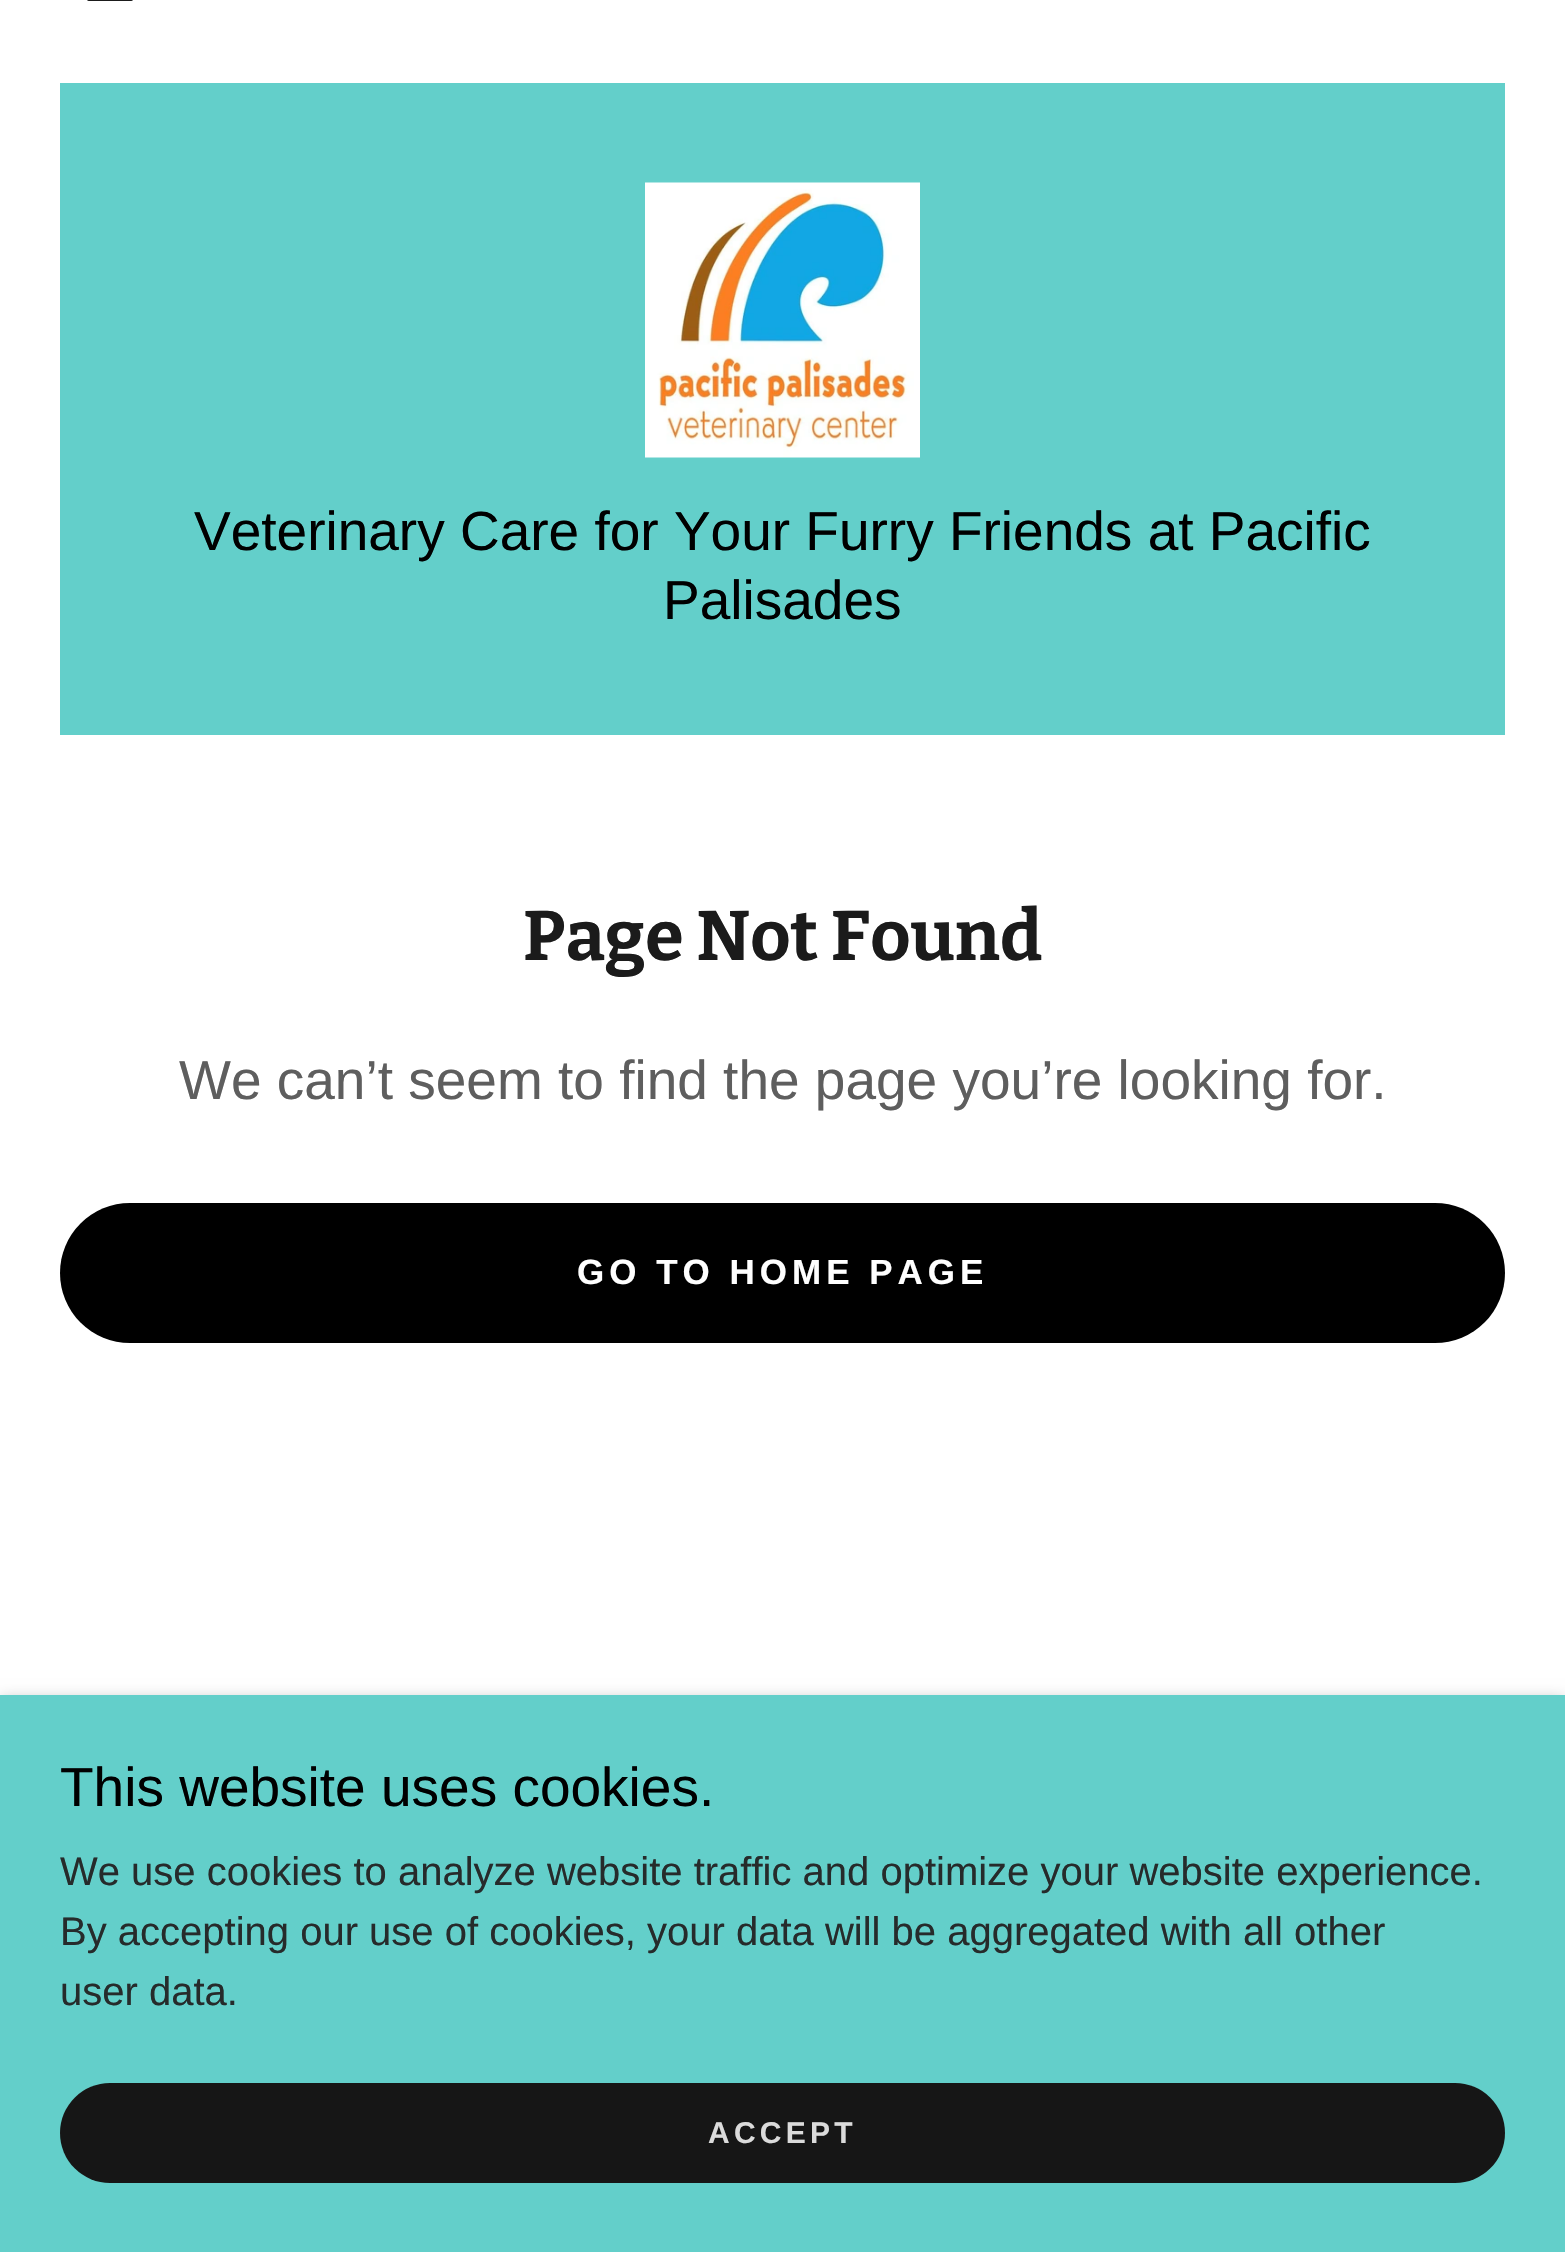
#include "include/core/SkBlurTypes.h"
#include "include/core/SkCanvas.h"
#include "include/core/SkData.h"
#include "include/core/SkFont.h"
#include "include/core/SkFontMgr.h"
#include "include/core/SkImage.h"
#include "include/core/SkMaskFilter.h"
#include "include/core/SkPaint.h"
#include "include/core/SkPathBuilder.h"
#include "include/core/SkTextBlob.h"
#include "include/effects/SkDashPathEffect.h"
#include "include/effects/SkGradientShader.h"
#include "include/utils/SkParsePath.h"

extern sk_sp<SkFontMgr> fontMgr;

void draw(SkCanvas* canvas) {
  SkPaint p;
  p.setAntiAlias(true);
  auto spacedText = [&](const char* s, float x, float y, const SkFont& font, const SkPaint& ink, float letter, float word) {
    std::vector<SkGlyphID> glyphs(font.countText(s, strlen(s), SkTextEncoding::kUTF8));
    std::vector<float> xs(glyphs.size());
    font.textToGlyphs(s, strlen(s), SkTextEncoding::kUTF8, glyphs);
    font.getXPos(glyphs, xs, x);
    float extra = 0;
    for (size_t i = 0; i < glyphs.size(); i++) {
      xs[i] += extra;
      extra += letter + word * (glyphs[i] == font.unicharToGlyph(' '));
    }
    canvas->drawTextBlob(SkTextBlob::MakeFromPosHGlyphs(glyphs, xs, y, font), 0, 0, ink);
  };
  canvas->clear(SK_ColorWHITE);
  canvas->drawImageRect(SkImages::DeferredFromEncodedData(SkData::MakeFromFileName("images/1.png")), SkRect::MakeLTRB(87, 0, 133, 1), SkSamplingOptions());
  p.setColor(SkColorSetRGB(99, 207, 202));
  canvas->drawRect(SkRect::MakeLTRB(60, 83, 1505, 735), p);
  canvas->drawImageRect(SkImages::DeferredFromEncodedData(SkData::MakeFromFileName("images/2.png")), SkRect::MakeLTRB(645, 182, 920, 458), SkSamplingOptions());
  p.setColor(SK_ColorBLACK);
  canvas->drawRoundRect(SkRect::MakeLTRB(60, 1203, 1505, 1343), 70, 70, p);
  p.setColor(SkColorSetARGB(77, 0, 0, 0));
  p.setMaskFilter(SkMaskFilter::MakeBlur(kNormal_SkBlurStyle, 7.5f));
  canvas->drawRect(SkRect::MakeLTRB(0, 1700, 1565, 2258), p);
  p.setMaskFilter(nullptr);
  p.setColor(SkColorSetRGB(99, 207, 202));
  canvas->drawRect(SkRect::MakeLTRB(0, 1695, 1565, 2252), p);
  p.setColor(SkColorSetRGB(22, 22, 22));
  canvas->drawRoundRect(SkRect::MakeLTRB(60, 2083, 1505, 2183), 50, 50, p);
  SkFont font1(fontMgr->matchFamilyStyle("Liberation Sans", SkFontStyle::Normal()), 55);
  font1.setSubpixel(true);
  p.setColor(SK_ColorBLACK);
  canvas->drawString("Veterinary Care for Your Furry Friends at Pacific", 194, 550, font1, p);
  canvas->drawString("Palisades", 663, 619, font1, p);
  SkFont font2(fontMgr->matchFamilyStyle("Bitter", SkFontStyle(100, SkFontStyle::kNormal_Width, SkFontStyle::kUpright_Slant)), 70);
  font2.setSubpixel(true);
  p.setColor(SkColorSetRGB(27, 27, 27));
  canvas->drawString("Page Not Found", 523, 960, font2, p);
  p.setColor(SkColorSetRGB(94, 94, 94));
  canvas->drawString("We can’t seem to find the page you’re looking for.", 179, 1099, font1, p);
  SkFont font3(fontMgr->matchFamilyStyle("Liberation Sans", SkFontStyle::Bold()), 35);
  font3.setSubpixel(true);
  p.setColor(SK_ColorWHITE);
  spacedText("GO TO HOME PAGE", 577, 1284, font3, p, 5, 0);
  p.setColor(SK_ColorBLACK);
  canvas->drawString("This website uses cookies.", 60, 1806, font1, p);
  SkFont font4(fontMgr->matchFamilyStyle("Liberation Sans", SkFontStyle::Normal()), 40);
  font4.setSubpixel(true);
  p.setColor(SkColorSetRGB(38, 43, 43));
  canvas->drawString("We use cookies to analyze website traffic and optimize your website experience.", 60, 1885, font4, p);
  canvas->drawString("By accepting our use of cookies, your data will be aggregated with all other", 60, 1945, font4, p);
  canvas->drawString("user data.", 60, 2005, font4, p);
  SkFont font5(fontMgr->matchFamilyStyle("Liberation Sans", SkFontStyle::Bold()), 30);
  font5.setSubpixel(true);
  p.setColor(SkColorSetRGB(219, 219, 219));
  spacedText("ACCEPT", 708, 2143, font5, p, 4.25f, 0);
}
